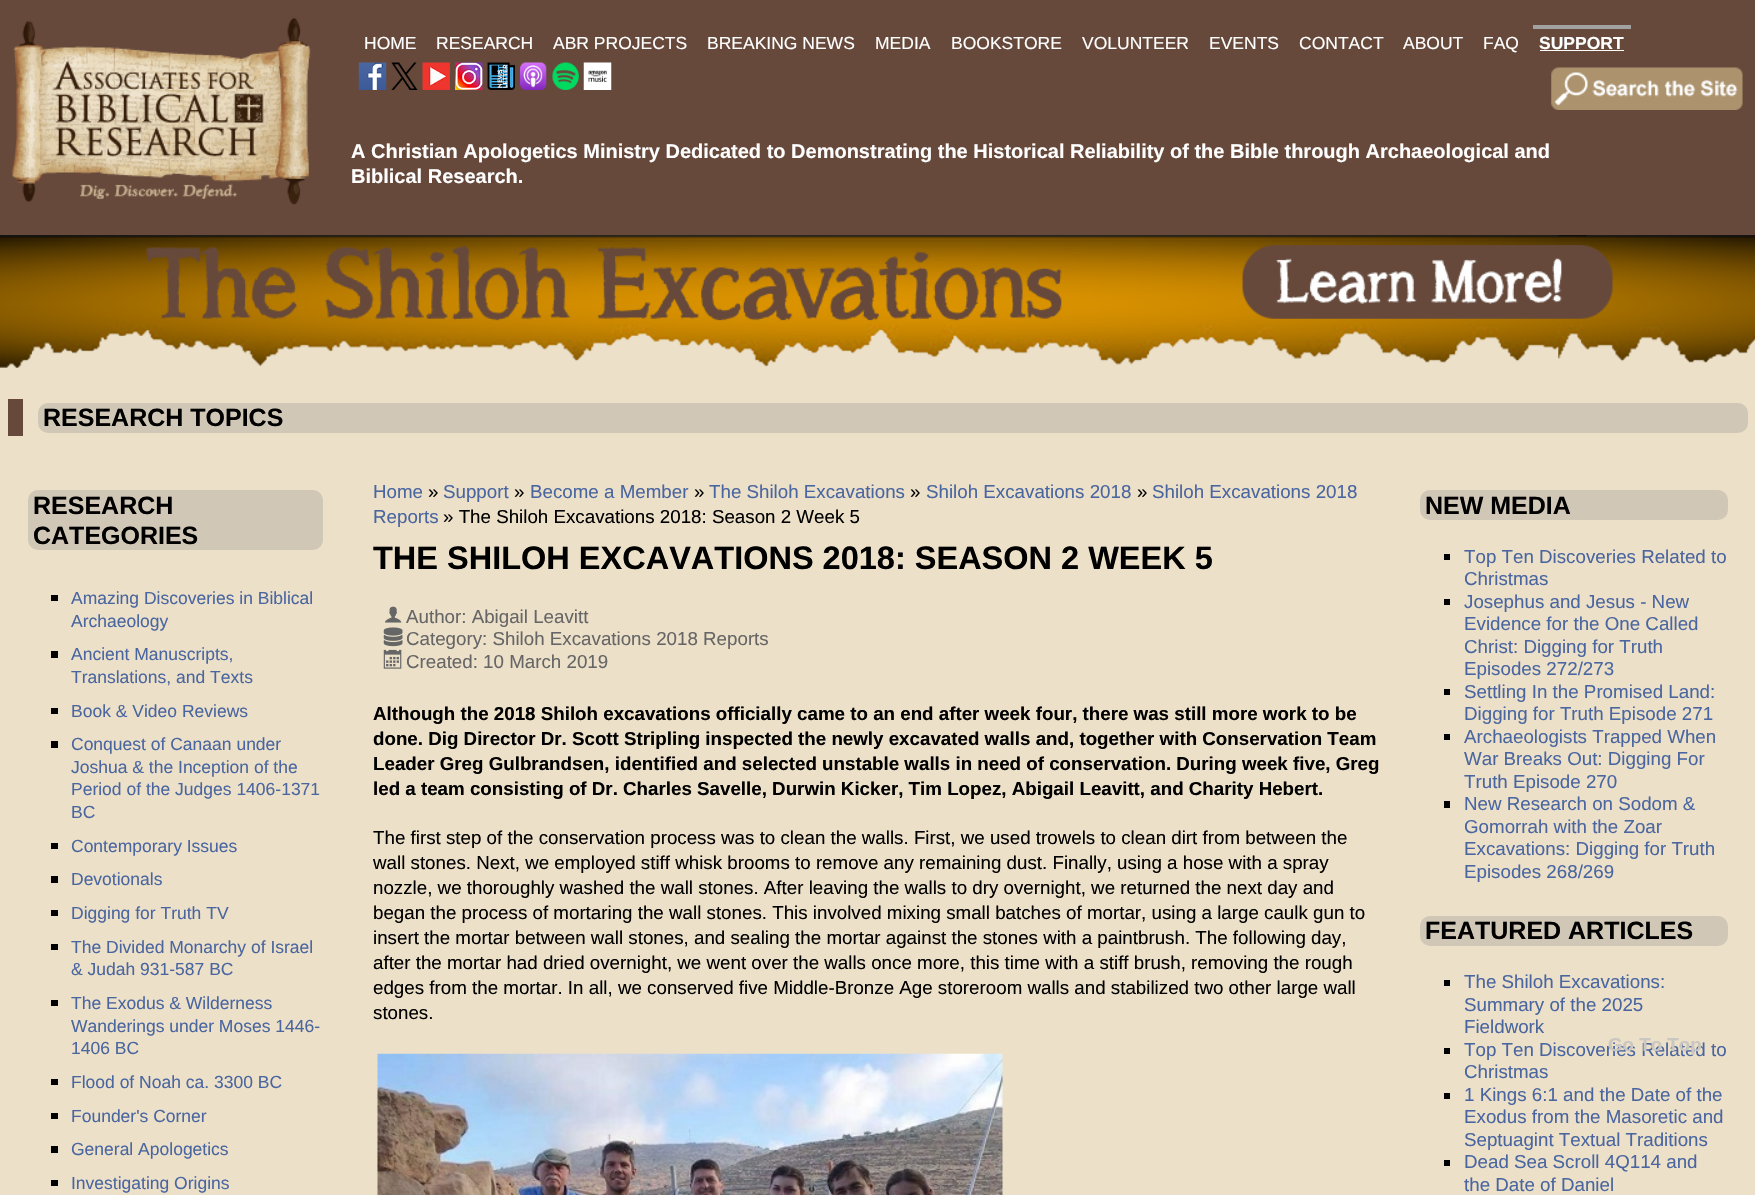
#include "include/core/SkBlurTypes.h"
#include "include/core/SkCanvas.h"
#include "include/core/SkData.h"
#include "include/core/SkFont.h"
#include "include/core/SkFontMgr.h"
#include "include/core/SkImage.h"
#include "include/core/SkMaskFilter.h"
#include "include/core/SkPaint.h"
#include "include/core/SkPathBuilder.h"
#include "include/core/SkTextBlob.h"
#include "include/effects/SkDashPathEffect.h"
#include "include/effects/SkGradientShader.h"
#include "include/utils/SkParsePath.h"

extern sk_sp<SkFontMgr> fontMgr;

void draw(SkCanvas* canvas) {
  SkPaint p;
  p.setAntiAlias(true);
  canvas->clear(SkColorSetRGB(102, 73, 59));
  canvas->drawImageRect(SkImages::DeferredFromEncodedData(SkData::MakeFromFileName("images/1.png")), SkRect::MakeLTRB(12, 17, 311, 205), SkSamplingOptions());
  p.setColor(SkColorSetRGB(161, 161, 161));
  canvas->drawRect(SkRect::MakeLTRB(1533, 25, 1631, 29), p);
  p.setColor(SK_ColorWHITE);
  canvas->drawRect(SkRect::MakeLTRB(1540, 50, 1624, 51), p);
  canvas->drawImageRect(SkImages::DeferredFromEncodedData(SkData::MakeFromFileName("images/2.png")), SkRect::MakeLTRB(358, 62, 387, 90), SkSamplingOptions());
  canvas->drawImageRect(SkImages::DeferredFromEncodedData(SkData::MakeFromFileName("images/3.png")), SkRect::MakeLTRB(391, 62, 418, 90), SkSamplingOptions());
  canvas->drawImageRect(SkImages::DeferredFromEncodedData(SkData::MakeFromFileName("images/4.png")), SkRect::MakeLTRB(422, 62, 450, 90), SkSamplingOptions());
  canvas->drawImageRect(SkImages::DeferredFromEncodedData(SkData::MakeFromFileName("images/5.png")), SkRect::MakeLTRB(455, 62, 483, 90), SkSamplingOptions());
  canvas->drawImageRect(SkImages::DeferredFromEncodedData(SkData::MakeFromFileName("images/6.png")), SkRect::MakeLTRB(487, 62, 515, 90), SkSamplingOptions());
  canvas->drawImageRect(SkImages::DeferredFromEncodedData(SkData::MakeFromFileName("images/7.png")), SkRect::MakeLTRB(520, 62, 547, 90), SkSamplingOptions());
  canvas->drawImageRect(SkImages::DeferredFromEncodedData(SkData::MakeFromFileName("images/8.png")), SkRect::MakeLTRB(552, 62, 579, 90), SkSamplingOptions());
  canvas->drawImageRect(SkImages::DeferredFromEncodedData(SkData::MakeFromFileName("images/9.png")), SkRect::MakeLTRB(583, 62, 612, 90), SkSamplingOptions());
  canvas->drawImageRect(SkImages::DeferredFromEncodedData(SkData::MakeFromFileName("images/10.png")), SkRect::MakeLTRB(1551, 67, 1743, 110), SkSamplingOptions());
  p.setColor(SkColorSetRGB(236, 224, 200));
  canvas->drawRect(SkRect::MakeLTRB(0, 235, 1755, 1195), p);
  canvas->drawImageRect(SkImages::DeferredFromEncodedData(SkData::MakeFromFileName("images/11.png")), SkRect::MakeLTRB(0, 235, 1755, 368), SkSamplingOptions());
  canvas->drawImageRect(SkImages::DeferredFromEncodedData(SkData::MakeFromFileName("images/12.png")), SkRect::MakeLTRB(146, 245, 1613, 321), SkSamplingOptions());
  p.setColor(SkColorSetRGB(102, 73, 59));
  canvas->drawRect(SkRect::MakeLTRB(8, 399, 23, 436), p);
  p.setColor(SkColorSetRGB(209, 199, 182));
  canvas->drawRoundRect(SkRect::MakeLTRB(38, 403, 1748, 433), 10, 10, p);
  canvas->drawRoundRect(SkRect::MakeLTRB(28, 490, 323, 550), 10, 10, p);
  p.setColor(SK_ColorBLACK);
  canvas->drawRect(SkRect::MakeLTRB(51, 595, 58, 601), p);
  canvas->drawRect(SkRect::MakeLTRB(51, 651, 58, 658), p);
  canvas->drawRect(SkRect::MakeLTRB(51, 708, 58, 714), p);
  canvas->drawRect(SkRect::MakeLTRB(51, 741, 58, 748), p);
  canvas->drawRect(SkRect::MakeLTRB(51, 843, 58, 849), p);
  canvas->drawRect(SkRect::MakeLTRB(51, 876, 58, 883), p);
  canvas->drawRect(SkRect::MakeLTRB(51, 910, 58, 916), p);
  canvas->drawRect(SkRect::MakeLTRB(51, 944, 58, 950), p);
  canvas->drawRect(SkRect::MakeLTRB(51, 1000, 58, 1006), p);
  canvas->drawRect(SkRect::MakeLTRB(51, 1079, 58, 1085), p);
  canvas->drawRect(SkRect::MakeLTRB(51, 1113, 58, 1119), p);
  canvas->drawRect(SkRect::MakeLTRB(51, 1146, 58, 1153), p);
  canvas->drawRect(SkRect::MakeLTRB(51, 1180, 58, 1186), p);
  canvas->drawImageRect(SkImages::DeferredFromEncodedData(SkData::MakeFromFileName("images/13.png")), SkRect::MakeLTRB(385, 606, 402, 623), SkSamplingOptions());
  canvas->drawImageRect(SkImages::DeferredFromEncodedData(SkData::MakeFromFileName("images/14.png")), SkRect::MakeLTRB(383, 627, 403, 647), SkSamplingOptions());
  canvas->drawImageRect(SkImages::DeferredFromEncodedData(SkData::MakeFromFileName("images/15.png")), SkRect::MakeLTRB(383, 649, 402, 669), SkSamplingOptions());
  canvas->drawImageRect(SkImages::DeferredFromEncodedData(SkData::MakeFromFileName("images/16.png")), SkRect::MakeLTRB(377, 1053, 1003, 1195), SkSamplingOptions());
  p.setColor(SkColorSetRGB(209, 199, 182));
  canvas->drawRoundRect(SkRect::MakeLTRB(1420, 490, 1728, 520), 10, 10, p);
  p.setColor(SK_ColorBLACK);
  canvas->drawRect(SkRect::MakeLTRB(1444, 554, 1450, 560), p);
  canvas->drawRect(SkRect::MakeLTRB(1444, 599, 1450, 605), p);
  canvas->drawRect(SkRect::MakeLTRB(1444, 689, 1450, 695), p);
  canvas->drawRect(SkRect::MakeLTRB(1444, 734, 1450, 740), p);
  canvas->drawRect(SkRect::MakeLTRB(1444, 801, 1450, 808), p);
  p.setColor(SkColorSetRGB(209, 199, 182));
  canvas->drawRoundRect(SkRect::MakeLTRB(1420, 916, 1728, 946), 10, 10, p);
  p.setColor(SK_ColorBLACK);
  canvas->drawRect(SkRect::MakeLTRB(1444, 980, 1450, 986), p);
  canvas->drawRect(SkRect::MakeLTRB(1444, 1048, 1450, 1054), p);
  canvas->drawRect(SkRect::MakeLTRB(1444, 1093, 1450, 1099), p);
  canvas->drawRect(SkRect::MakeLTRB(1444, 1160, 1450, 1166), p);
  SkFont font1(fontMgr->matchFamilyStyle("Liberation Sans", SkFontStyle::Normal()), 17.5f);
  font1.setSubpixel(true);
  p.setColor(SK_ColorWHITE);
  canvas->drawString("HOME", 364, 49, font1, p);
  canvas->drawString("RESEARCH", 436, 49, font1, p);
  canvas->drawString("ABR PROJECTS", 553, 49, font1, p);
  canvas->drawString("BREAKING NEWS", 707, 49, font1, p);
  canvas->drawString("MEDIA", 875, 49, font1, p);
  canvas->drawString("BOOKSTORE", 951, 49, font1, p);
  canvas->drawString("VOLUNTEER", 1082, 49, font1, p);
  canvas->drawString("EVENTS", 1209, 49, font1, p);
  canvas->drawString("CONTACT", 1299, 49, font1, p);
  canvas->drawString("ABOUT", 1403, 49, font1, p);
  canvas->drawString("FAQ", 1483, 49, font1, p);
  SkFont font2(fontMgr->matchFamilyStyle("Liberation Sans", SkFontStyle::Bold()), 17.5f);
  font2.setSubpixel(true);
  canvas->drawString("SUPPORT", 1539, 49, font2, p);
  SkFont font3(fontMgr->matchFamilyStyle("Liberation Sans", SkFontStyle::Bold()), 20);
  font3.setSubpixel(true);
  canvas->drawString("A Christian Apologetics Ministry Dedicated to Demonstrating the Historical Reliability of the Bible through Archaeological and", 351, 158, font3, p);
  canvas->drawString("Biblical Research.", 351, 183, font3, p);
  SkFont font4(fontMgr->matchFamilyStyle("Liberation Sans", SkFontStyle::Bold()), 25);
  font4.setSubpixel(true);
  p.setColor(SK_ColorBLACK);
  canvas->drawString("RESEARCH TOPICS", 43, 426, font4, p);
  canvas->drawString("RESEARCH", 33, 514, font4, p);
  canvas->drawString("CATEGORIES", 33, 544, font4, p);
  p.setColor(SkColorSetRGB(74, 102, 160));
  canvas->drawString("Amazing Discoveries in Biblical", 71, 604, font1, p);
  canvas->drawString("Archaeology", 71, 627, font1, p);
  canvas->drawString("Ancient Manuscripts,", 71, 660, font1, p);
  canvas->drawString("Translations, and Texts", 71, 683, font1, p);
  canvas->drawString("Book & Video Reviews", 71, 717, font1, p);
  canvas->drawString("Conquest of Canaan under", 71, 750, font1, p);
  canvas->drawString("Joshua & the Inception of the", 71, 773, font1, p);
  canvas->drawString("Period of the Judges 1406-1371", 71, 795, font1, p);
  canvas->drawString("BC", 71, 818, font1, p);
  canvas->drawString("Contemporary Issues", 71, 852, font1, p);
  canvas->drawString("Devotionals", 71, 885, font1, p);
  canvas->drawString("Digging for Truth TV", 71, 919, font1, p);
  canvas->drawString("The Divided Monarchy of Israel", 71, 953, font1, p);
  canvas->drawString("& Judah 931-587 BC", 71, 975, font1, p);
  canvas->drawString("The Exodus & Wilderness", 71, 1009, font1, p);
  canvas->drawString("Wanderings under Moses 1446-", 71, 1032, font1, p);
  canvas->drawString("1406 BC", 71, 1054, font1, p);
  canvas->drawString("Flood of Noah ca. 3300 BC", 71, 1088, font1, p);
  canvas->drawString("Founder's Corner", 71, 1122, font1, p);
  canvas->drawString("General Apologetics", 71, 1155, font1, p);
  canvas->drawString("Investigating Origins", 71, 1189, font1, p);
  SkFont font5(fontMgr->matchFamilyStyle("Liberation Sans", SkFontStyle::Normal()), 18.75f);
  font5.setSubpixel(true);
  canvas->drawString("Home", 373, 498, font5, p);
  p.setColor(SK_ColorBLACK);
  canvas->drawString("»", 428, 498, font5, p);
  p.setColor(SkColorSetRGB(74, 102, 160));
  canvas->drawString("Support", 443, 498, font5, p);
  p.setColor(SK_ColorBLACK);
  canvas->drawString("»", 514, 498, font5, p);
  p.setColor(SkColorSetRGB(74, 102, 160));
  canvas->drawString("Become a Member", 530, 498, font5, p);
  p.setColor(SK_ColorBLACK);
  canvas->drawString("»", 694, 498, font5, p);
  p.setColor(SkColorSetRGB(74, 102, 160));
  canvas->drawString("The Shiloh Excavations", 709, 498, font5, p);
  p.setColor(SK_ColorBLACK);
  canvas->drawString("»", 910, 498, font5, p);
  p.setColor(SkColorSetRGB(74, 102, 160));
  canvas->drawString("Shiloh Excavations 2018", 926, 498, font5, p);
  p.setColor(SK_ColorBLACK);
  canvas->drawString("»", 1137, 498, font5, p);
  p.setColor(SkColorSetRGB(74, 102, 160));
  canvas->drawString("Shiloh Excavations 2018", 1152, 498, font5, p);
  canvas->drawString("Reports", 373, 523, font5, p);
  p.setColor(SK_ColorBLACK);
  canvas->drawString("» The Shiloh Excavations 2018: Season 2 Week 5", 443, 523, font5, p);
  SkFont font6(fontMgr->matchFamilyStyle("Liberation Sans", SkFontStyle::Bold()), 32.5f);
  font6.setSubpixel(true);
  canvas->drawString("THE SHILOH EXCAVATIONS 2018: SEASON 2 WEEK 5", 373, 569, font6, p);
  p.setColor(SkColorSetRGB(102, 102, 102));
  canvas->drawString("Author: Abigail Leavitt", 406, 623, font5, p);
  canvas->drawString("Category: Shiloh Excavations 2018 Reports", 406, 645, font5, p);
  canvas->drawString("Created: 10 March 2019", 406, 668, font5, p);
  SkFont font7(fontMgr->matchFamilyStyle("Liberation Sans", SkFontStyle::Bold()), 18.75f);
  font7.setSubpixel(true);
  p.setColor(SK_ColorBLACK);
  canvas->drawString("Although the 2018 Shiloh excavations officially came to an end after week four, there was still more work to be", 373, 720, font7, p);
  canvas->drawString("done. Dig Director Dr. Scott Stripling inspected the newly excavated walls and, together with Conservation Team", 373, 745, font7, p);
  canvas->drawString("Leader Greg Gulbrandsen, identified and selected unstable walls in need of conservation. During week five, Greg", 373, 770, font7, p);
  canvas->drawString("led a team consisting of Dr. Charles Savelle, Durwin Kicker, Tim Lopez, Abigail Leavitt, and Charity Hebert.", 373, 795, font7, p);
  canvas->drawString("The first step of the conservation process was to clean the walls. First, we used trowels to clean dirt from between the", 373, 844, font5, p);
  canvas->drawString("wall stones. Next, we employed stiff whisk brooms to remove any remaining dust. Finally, using a hose with a spray", 373, 869, font5, p);
  canvas->drawString("nozzle, we thoroughly washed the wall stones. After leaving the walls to dry overnight, we returned the next day and", 373, 894, font5, p);
  canvas->drawString("began the process of mortaring the wall stones. This involved mixing small batches of mortar, using a large caulk gun to", 373, 919, font5, p);
  canvas->drawString("insert the mortar between wall stones, and sealing the mortar against the stones with a paintbrush. The following day,", 373, 944, font5, p);
  canvas->drawString("after the mortar had dried overnight, we went over the walls once more, this time with a stiff brush, removing the rough", 373, 969, font5, p);
  canvas->drawString("edges from the mortar. In all, we conserved five Middle-Bronze Age storeroom walls and stabilized two other large wall", 373, 994, font5, p);
  canvas->drawString("stones.", 373, 1019, font5, p);
  canvas->drawString("NEW MEDIA", 1425, 514, font4, p);
  p.setColor(SkColorSetRGB(74, 102, 160));
  canvas->drawString("Top Ten Discoveries Related to", 1464, 563, font5, p);
  canvas->drawString("Christmas", 1464, 585, font5, p);
  canvas->drawString("Josephus and Jesus - New", 1464, 608, font5, p);
  canvas->drawString("Evidence for the One Called", 1464, 630, font5, p);
  canvas->drawString("Christ: Digging for Truth", 1464, 653, font5, p);
  canvas->drawString("Episodes 272/273", 1464, 675, font5, p);
  canvas->drawString("Settling In the Promised Land:", 1464, 698, font5, p);
  canvas->drawString("Digging for Truth Episode 271", 1464, 720, font5, p);
  canvas->drawString("Archaeologists Trapped When", 1464, 743, font5, p);
  canvas->drawString("War Breaks Out: Digging For", 1464, 765, font5, p);
  canvas->drawString("Truth Episode 270", 1464, 788, font5, p);
  canvas->drawString("New Research on Sodom &", 1464, 810, font5, p);
  canvas->drawString("Gomorrah with the Zoar", 1464, 833, font5, p);
  canvas->drawString("Excavations: Digging for Truth", 1464, 855, font5, p);
  canvas->drawString("Episodes 268/269", 1464, 878, font5, p);
  p.setColor(SK_ColorBLACK);
  canvas->drawString("FEATURED ARTICLES", 1425, 939, font4, p);
  p.setColor(SkColorSetRGB(74, 102, 160));
  canvas->drawString("The Shiloh Excavations:", 1464, 988, font5, p);
  canvas->drawString("Summary of the 2025", 1464, 1011, font5, p);
  canvas->drawString("Fieldwork", 1464, 1033, font5, p);
  canvas->drawString("Top Ten Discoveries Related to", 1464, 1056, font5, p);
  canvas->drawString("Christmas", 1464, 1078, font5, p);
  canvas->drawString("1 Kings 6:1 and the Date of the", 1464, 1101, font5, p);
  canvas->drawString("Exodus from the Masoretic and", 1464, 1123, font5, p);
  canvas->drawString("Septuagint Textual Traditions", 1464, 1146, font5, p);
  canvas->drawString("Dead Sea Scroll 4Q114 and", 1464, 1168, font5, p);
  canvas->drawString("the Date of Daniel", 1464, 1191, font5, p);
  p.setColor(SkColorSetRGB(202, 198, 192));
  canvas->drawString("Go To Top", 1608, 1051, font7, p);
}
